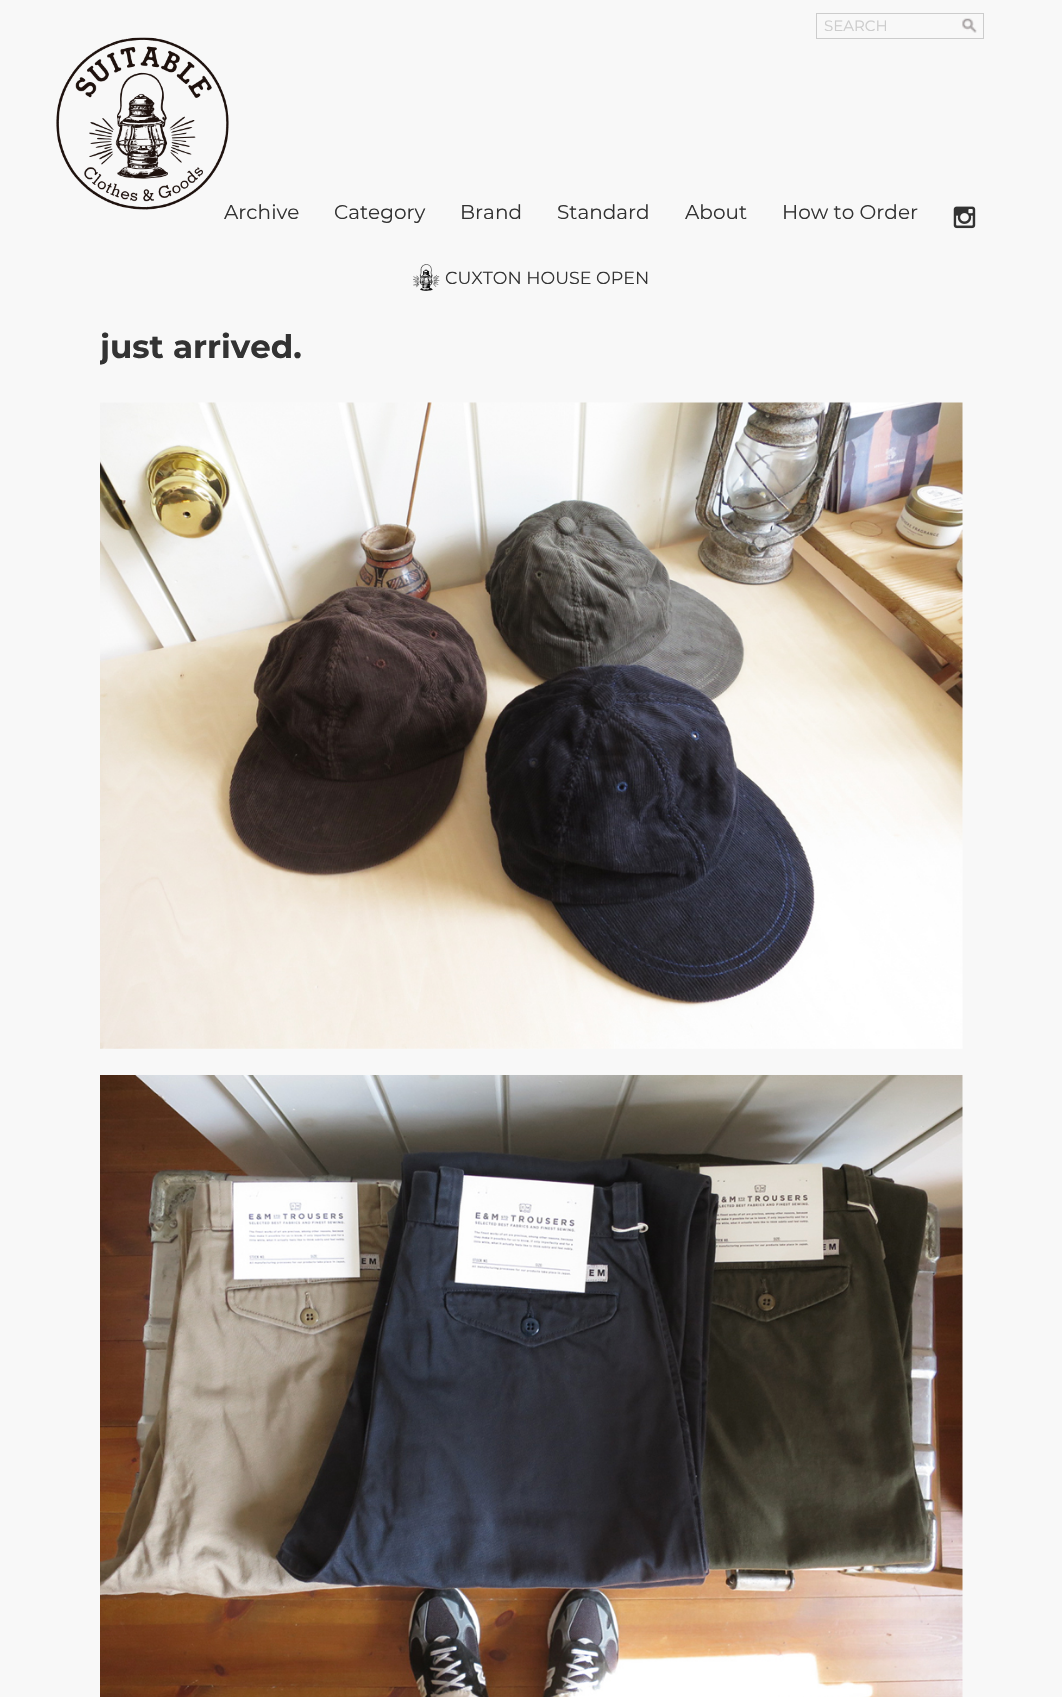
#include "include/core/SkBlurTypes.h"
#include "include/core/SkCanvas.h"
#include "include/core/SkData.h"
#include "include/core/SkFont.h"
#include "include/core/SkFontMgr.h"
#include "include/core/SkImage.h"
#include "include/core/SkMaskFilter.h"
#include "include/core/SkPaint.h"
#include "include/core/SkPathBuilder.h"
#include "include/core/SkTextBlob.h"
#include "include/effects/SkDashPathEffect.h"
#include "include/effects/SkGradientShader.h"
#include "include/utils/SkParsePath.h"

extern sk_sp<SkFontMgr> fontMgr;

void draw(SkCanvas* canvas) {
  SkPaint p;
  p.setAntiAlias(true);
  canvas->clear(SkColorSetRGB(248, 248, 248));
  p.setStyle(SkPaint::kStroke_Style);
  p.setStrokeWidth(1);
  p.setColor(SkColorSetRGB(204, 204, 204));
  canvas->drawRect(SkRect::MakeLTRB(816.5f, 13.5f, 983.5f, 38.5f), p);
  canvas->drawImageRect(SkImages::DeferredFromEncodedData(SkData::MakeFromFileName("images/1.png")), SkRect::MakeLTRB(962, 18, 977, 33), SkSamplingOptions());
  canvas->drawImageRect(SkImages::DeferredFromEncodedData(SkData::MakeFromFileName("images/2.png")), SkRect::MakeLTRB(56, 37, 229, 210), SkSamplingOptions());
  canvas->drawImageRect(SkImages::DeferredFromEncodedData(SkData::MakeFromFileName("images/3.png")), SkRect::MakeLTRB(953, 206, 976, 229), SkSamplingOptions());
  canvas->drawImageRect(SkImages::DeferredFromEncodedData(SkData::MakeFromFileName("images/4.png")), SkRect::MakeLTRB(413, 264, 440, 291), SkSamplingOptions());
  canvas->drawImageRect(SkImages::DeferredFromEncodedData(SkData::MakeFromFileName("images/5.png")), SkRect::MakeLTRB(100, 402, 963, 1049), SkSamplingOptions());
  canvas->drawImageRect(SkImages::DeferredFromEncodedData(SkData::MakeFromFileName("images/6.png")), SkRect::MakeLTRB(100, 1075, 963, 1697), SkSamplingOptions());
  SkFont font1(fontMgr->matchFamilyStyle("Montserrat", SkFontStyle::Normal()), 15);
  font1.setSubpixel(true);
  p.setStyle(SkPaint::kFill_Style);
  canvas->drawString("SEARCH", 824, 31, font1, p);
  SkFont font2(fontMgr->matchFamilyStyle("Montserrat", SkFontStyle::Normal()), 20);
  font2.setSubpixel(true);
  p.setColor(SkColorSetRGB(51, 51, 51));
  canvas->drawString("Archive", 224, 219, font2, p);
  canvas->drawString("Category", 334, 219, font2, p);
  canvas->drawString("Brand", 460, 219, font2, p);
  canvas->drawString("Standard", 557, 219, font2, p);
  canvas->drawString("About", 685, 219, font2, p);
  canvas->drawString("How to Order", 782, 219, font2, p);
  SkFont font3(fontMgr->matchFamilyStyle("Montserrat", SkFontStyle::Normal()), 17.5f);
  font3.setSubpixel(true);
  canvas->drawString("CUXTON HOUSE OPEN", 445, 284, font3, p);
  canvas->save();
  canvas->clipRect(SkRect::MakeLTRB(100, 329, 963, 365));
  SkFont font4(fontMgr->matchFamilyStyle("Montserrat", SkFontStyle::Bold()), 32.5f);
  font4.setSubpixel(true);
  canvas->drawString("just arrived.", 100, 358, font4, p);
  canvas->restore();
}
